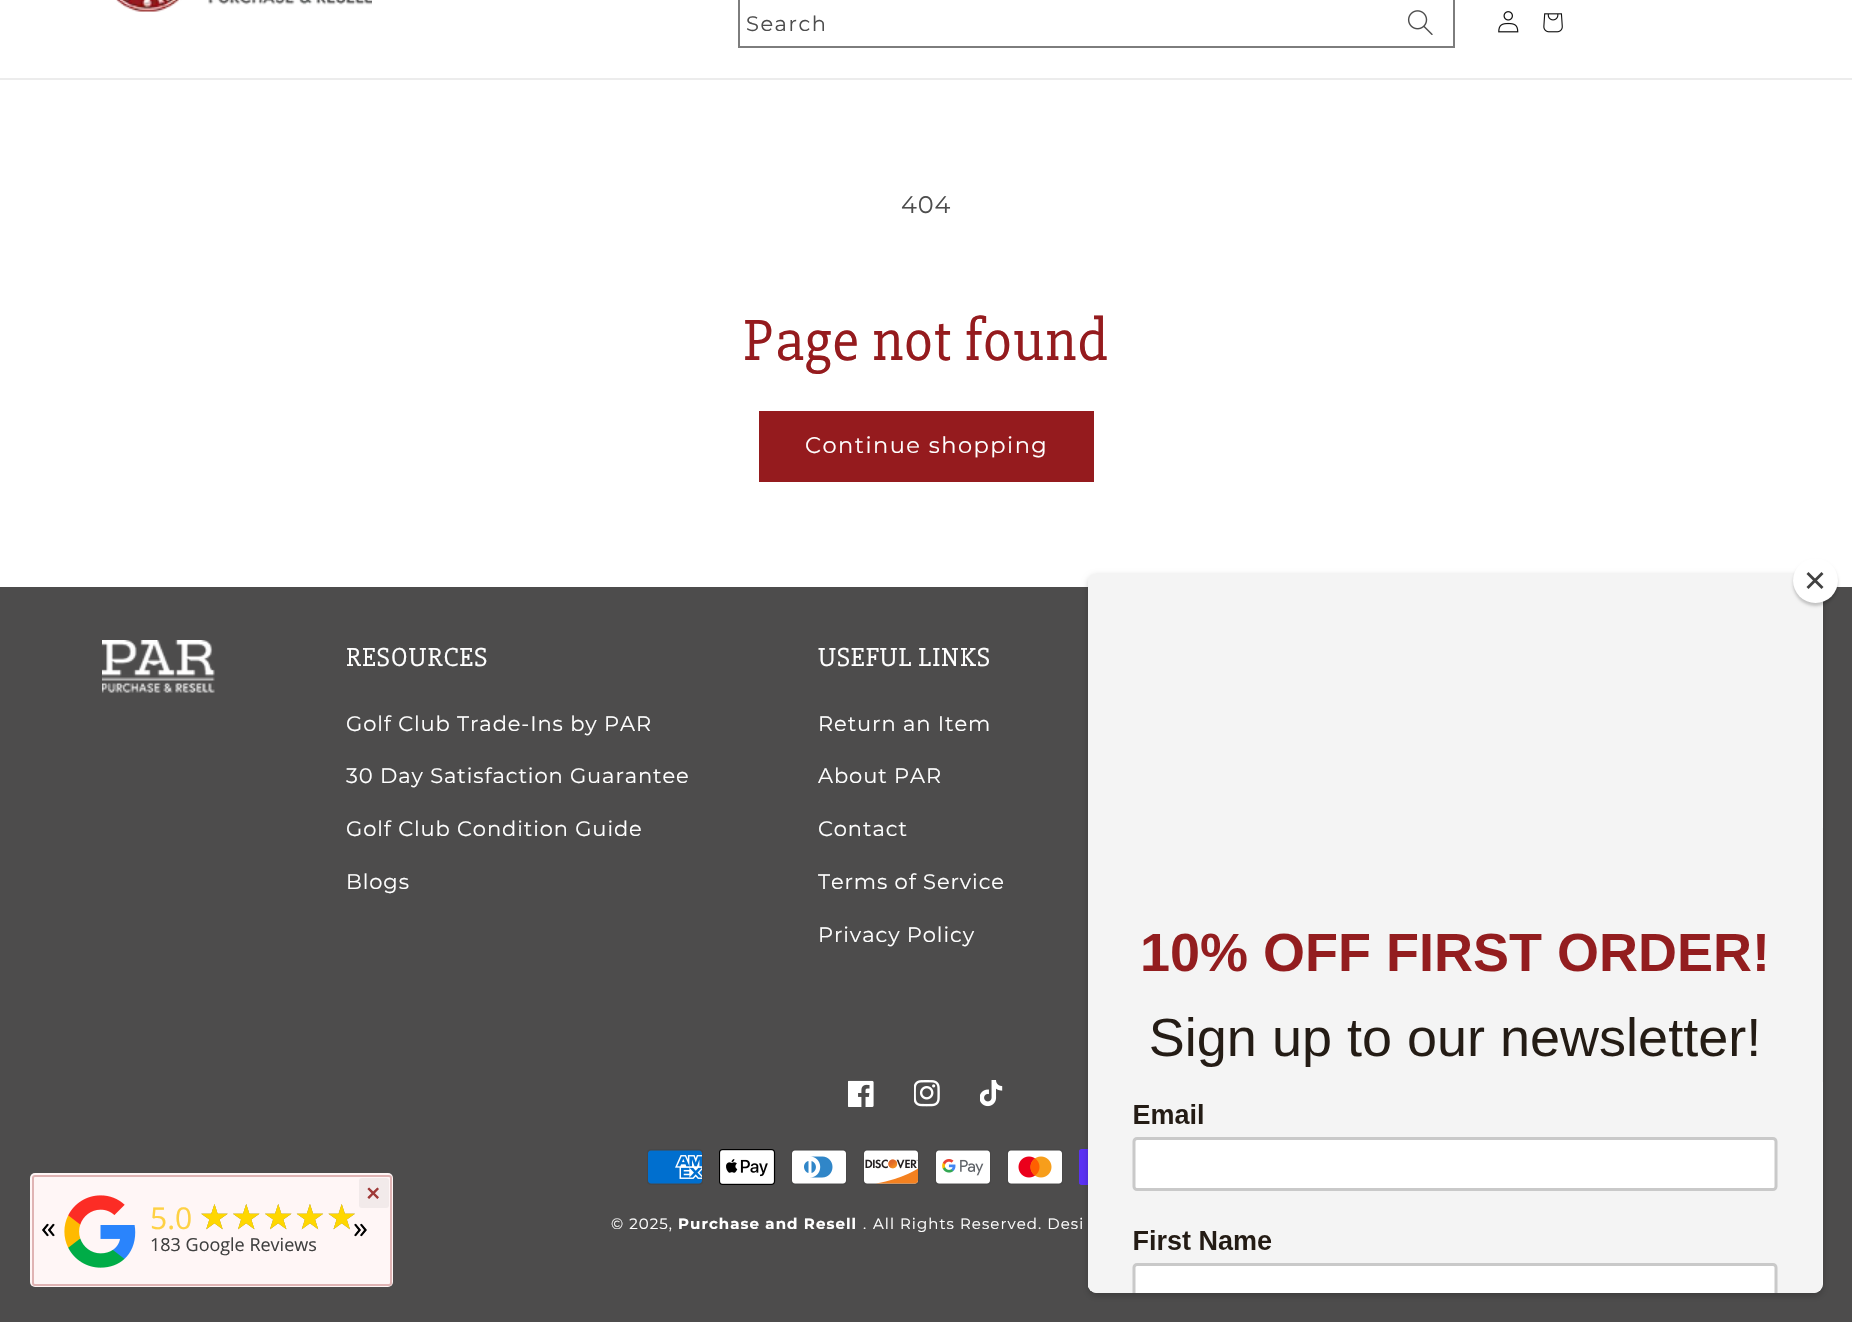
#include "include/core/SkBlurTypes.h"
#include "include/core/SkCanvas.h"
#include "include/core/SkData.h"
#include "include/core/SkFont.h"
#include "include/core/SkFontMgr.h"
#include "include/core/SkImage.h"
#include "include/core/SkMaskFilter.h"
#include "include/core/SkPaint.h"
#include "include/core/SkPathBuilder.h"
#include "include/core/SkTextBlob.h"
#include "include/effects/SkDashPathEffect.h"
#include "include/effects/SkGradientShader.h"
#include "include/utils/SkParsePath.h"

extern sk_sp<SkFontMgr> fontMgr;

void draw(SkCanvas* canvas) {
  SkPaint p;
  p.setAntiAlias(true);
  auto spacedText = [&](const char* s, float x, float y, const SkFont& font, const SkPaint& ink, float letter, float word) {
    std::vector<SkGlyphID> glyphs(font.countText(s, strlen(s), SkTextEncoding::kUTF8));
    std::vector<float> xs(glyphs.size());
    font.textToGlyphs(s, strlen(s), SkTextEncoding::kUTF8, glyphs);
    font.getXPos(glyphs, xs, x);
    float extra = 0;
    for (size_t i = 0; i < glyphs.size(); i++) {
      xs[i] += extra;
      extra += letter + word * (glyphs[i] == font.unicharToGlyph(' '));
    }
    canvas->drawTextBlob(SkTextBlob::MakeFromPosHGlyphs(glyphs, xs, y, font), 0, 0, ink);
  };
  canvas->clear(SK_ColorWHITE);
  p.setColor(SkColorSetRGB(236, 236, 236));
  canvas->drawRect(SkRect::MakeLTRB(0, 78, 1852, 80), p);
  canvas->drawImageRect(SkImages::DeferredFromEncodedData(SkData::MakeFromFileName("images/1.png")), SkRect::MakeLTRB(116, 0, 372, 12), SkSamplingOptions());
  canvas->drawImageRect(SkImages::DeferredFromEncodedData(SkData::MakeFromFileName("images/2.png")), SkRect::MakeLTRB(1407, 10, 1433, 35), SkSamplingOptions());
  p.setStyle(SkPaint::kStroke_Style);
  p.setStrokeWidth(2);
  p.setColor(SkColorSetRGB(125, 125, 125));
  canvas->drawRect(SkRect::MakeLTRB(739, -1, 1454, 47), p);
  canvas->drawImageRect(SkImages::DeferredFromEncodedData(SkData::MakeFromFileName("images/3.png")), SkRect::MakeLTRB(1498, 11, 1519, 33), SkSamplingOptions());
  canvas->drawImageRect(SkImages::DeferredFromEncodedData(SkData::MakeFromFileName("images/4.png")), SkRect::MakeLTRB(1543, 13, 1563, 33), SkSamplingOptions());
  p.setStyle(SkPaint::kFill_Style);
  p.setColor(SkColorSetRGB(149, 27, 30));
  canvas->drawRect(SkRect::MakeLTRB(759, 411, 1094, 482), p);
  p.setColor(SkColorSetRGB(77, 76, 76));
  canvas->drawRect(SkRect::MakeLTRB(0, 587, 1852, 1322), p);
  p.setColor(SkColorSetRGB(255, 246, 246));
  canvas->drawRoundRect(SkRect::MakeLTRB(30, 1173, 393, 1287), 5, 5, p);
  p.setStyle(SkPaint::kStroke_Style);
  p.setColor(SkColorSetRGB(224, 180, 180));
  canvas->drawRoundRect(SkRect::MakeLTRB(33, 1176, 391, 1285), 2, 2, p);
  p.setStyle(SkPaint::kFill_Style);
  p.setColor(SkColorSetRGB(242, 234, 234));
  canvas->drawRoundRect(SkRect::MakeLTRB(359, 1178, 389, 1208), 3, 3, p);
  canvas->drawImageRect(SkImages::DeferredFromEncodedData(SkData::MakeFromFileName("images/5.png")), SkRect::MakeLTRB(64, 1195, 136, 1268), SkSamplingOptions());
  canvas->drawImageRect(SkImages::DeferredFromEncodedData(SkData::MakeFromFileName("images/6.png")), SkRect::MakeLTRB(102, 640, 215, 693), SkSamplingOptions());
  canvas->drawImageRect(SkImages::DeferredFromEncodedData(SkData::MakeFromFileName("images/7.png")), SkRect::MakeLTRB(848, 1080, 874, 1107), SkSamplingOptions());
  canvas->drawImageRect(SkImages::DeferredFromEncodedData(SkData::MakeFromFileName("images/8.png")), SkRect::MakeLTRB(914, 1080, 940, 1107), SkSamplingOptions());
  canvas->drawImageRect(SkImages::DeferredFromEncodedData(SkData::MakeFromFileName("images/9.png")), SkRect::MakeLTRB(980, 1080, 1003, 1107), SkSamplingOptions());
  canvas->drawImageRect(SkImages::DeferredFromEncodedData(SkData::MakeFromFileName("images/10.png")), SkRect::MakeLTRB(647, 1149, 703, 1185), SkSamplingOptions());
  canvas->drawImageRect(SkImages::DeferredFromEncodedData(SkData::MakeFromFileName("images/11.png")), SkRect::MakeLTRB(719, 1149, 776, 1185), SkSamplingOptions());
  canvas->drawImageRect(SkImages::DeferredFromEncodedData(SkData::MakeFromFileName("images/12.png")), SkRect::MakeLTRB(791, 1149, 847, 1185), SkSamplingOptions());
  canvas->drawImageRect(SkImages::DeferredFromEncodedData(SkData::MakeFromFileName("images/13.png")), SkRect::MakeLTRB(863, 1149, 919, 1185), SkSamplingOptions());
  canvas->drawImageRect(SkImages::DeferredFromEncodedData(SkData::MakeFromFileName("images/14.png")), SkRect::MakeLTRB(935, 1149, 991, 1185), SkSamplingOptions());
  canvas->drawImageRect(SkImages::DeferredFromEncodedData(SkData::MakeFromFileName("images/15.png")), SkRect::MakeLTRB(1007, 1149, 1063, 1185), SkSamplingOptions());
  canvas->drawImageRect(SkImages::DeferredFromEncodedData(SkData::MakeFromFileName("images/16.png")), SkRect::MakeLTRB(1079, 1149, 1088, 1185), SkSamplingOptions());
  p.setColor(SkColorSetARGB(51, 0, 0, 0));
  p.setMaskFilter(SkMaskFilter::MakeBlur(kNormal_SkBlurStyle, 3));
  canvas->drawRoundRect(SkRect::MakeLTRB(1088, 576, 1823, 1296), 9, 9, p);
  p.setMaskFilter(nullptr);
  p.setColor(SK_ColorWHITE);
  canvas->drawRoundRect(SkRect::MakeLTRB(1088, 573, 1823, 1293), 9, 9, p);
  canvas->drawImageRect(SkImages::DeferredFromEncodedData(SkData::MakeFromFileName("images/17.png")), SkRect::MakeLTRB(1088, 573, 1823, 1293), SkSamplingOptions());
  p.setColor(SkColorSetARGB(51, 0, 0, 0));
  p.setMaskFilter(SkMaskFilter::MakeBlur(kNormal_SkBlurStyle, 1.5f));
  canvas->drawRoundRect(SkRect::MakeLTRB(1793, 561, 1838, 606), 22.5f, 22.5f, p);
  p.setMaskFilter(nullptr);
  p.setColor(SK_ColorWHITE);
  canvas->drawCircle(1815.5f, 580.5f, 22.5f, p);
  p.setColor(SkColorSetRGB(65, 65, 65));
  canvas->drawPath(SkPathBuilder().moveTo(1821.5f, 572).lineTo(1823.5f, 574).lineTo(1808.5f, 589).lineTo(1806.5f, 587).close().detach(), p);
  canvas->drawPath(SkPathBuilder().moveTo(1806.5f, 574).lineTo(1808.5f, 572).lineTo(1823.5f, 587).lineTo(1821.5f, 589).close().detach(), p);
  SkFont font1(fontMgr->matchFamilyStyle("Montserrat", SkFontStyle::Normal()), 21);
  font1.setSubpixel(true);
  p.setColor(SkColorSetRGB(77, 77, 77));
  spacedText("Search", 746, 31, font1, p, 1.5f, 0);
  SkFont font2(fontMgr->matchFamilyStyle("Montserrat", SkFontStyle::Normal()), 24);
  font2.setSubpixel(true);
  spacedText("404", 901, 213, font2, p, 0.9f, 0);
  SkFont font3(fontMgr->matchFamilyStyle("Slabo 27px", SkFontStyle::Normal()), 60);
  font3.setSubpixel(true);
  p.setColor(SkColorSetRGB(149, 27, 30));
  spacedText("Page not found", 743, 360, font3, p, 0.9f, 0);
  SkFont font4(fontMgr->matchFamilyStyle("Montserrat", SkFontStyle::Normal()), 22.5f);
  font4.setSubpixel(true);
  p.setColor(SK_ColorWHITE);
  spacedText("Continue shopping", 805, 453, font4, p, 1.5f, 0);
  SkFont font5(fontMgr->matchFamilyStyle("Open Sans", SkFontStyle::Bold()), 24);
  font5.setSubpixel(true);
  p.setColor(SkColorSetRGB(159, 58, 56));
  spacedText("×", 366, 1202, font5, p, 0.9f, 0);
  SkFont font6(fontMgr->matchFamilyStyle("Open Sans", SkFontStyle::Normal()), 30);
  font6.setSubpixel(true);
  p.setColor(SkColorSetRGB(254, 209, 68));
  canvas->drawString("5.0", 150, 1229, font6, p);
  SkFont font7(fontMgr->matchFamilyStyle("DejaVu Sans", SkFontStyle::Normal()), 34.5f);
  font7.setSubpixel(true);
  p.setColor(SkColorSetRGB(128, 128, 128));
  spacedText("★★★★★", 199, 1229, font7, p, 0.9f, 0);
  p.setColor(SkColorSetRGB(255, 215, 0));
  spacedText("★★★★★", 199, 1229, font7, p, 0.9f, 0);
  SkFont font8(fontMgr->matchFamilyStyle("Open Sans", SkFontStyle::Normal()), 18);
  font8.setSubpixel(true);
  p.setColor(SkColorSetRGB(64, 64, 64));
  canvas->drawString("183 Google Reviews", 150, 1251, font8, p);
  p.setColor(SK_ColorBLACK);
  spacedText("«", 41, 1238, font6, p, 0.9f, 0);
  spacedText("»", 353, 1238, font6, p, 0.9f, 0);
  SkFont font9(fontMgr->matchFamilyStyle("Slabo 27px", SkFontStyle::Normal()), 27);
  font9.setSubpixel(true);
  p.setColor(SK_ColorWHITE);
  spacedText("RESOURCES", 346, 666, font9, p, 0.9f, 0);
  spacedText("Golf Club Trade-Ins by PAR", 346, 731, font1, p, 0.9f, 0);
  spacedText("30 Day Satisfaction Guarantee", 346, 783, font1, p, 0.9f, 0);
  spacedText("Golf Club Condition Guide", 346, 836, font1, p, 0.9f, 0);
  spacedText("Blogs", 346, 889, font1, p, 0.9f, 0);
  spacedText("USEFUL LINKS", 818, 666, font9, p, 0.9f, 0);
  spacedText("Return an Item", 818, 731, font1, p, 0.9f, 0);
  spacedText("About PAR", 818, 783, font1, p, 0.9f, 0);
  spacedText("Contact", 818, 836, font1, p, 0.9f, 0);
  spacedText("Terms of Service", 818, 889, font1, p, 0.9f, 0);
  spacedText("Privacy Policy", 818, 942, font1, p, 0.9f, 0);
  SkFont font10(fontMgr->matchFamilyStyle("Montserrat", SkFontStyle::Normal()), 15);
  font10.setSubpixel(true);
  spacedText("© 2025,", 611, 1229, font10, p, 1.05f, 0);
  SkFont font11(fontMgr->matchFamilyStyle("Montserrat", SkFontStyle::Bold()), 15);
  font11.setSubpixel(true);
  spacedText("Purchase and Resell", 678, 1229, font11, p, 1.05f, 0);
  spacedText(".", 863, 1229, font10, p, 1.05f, 0);
  spacedText("All Rights Reserved. Desi", 873, 1229, font10, p, 1.05f, 0);
}
